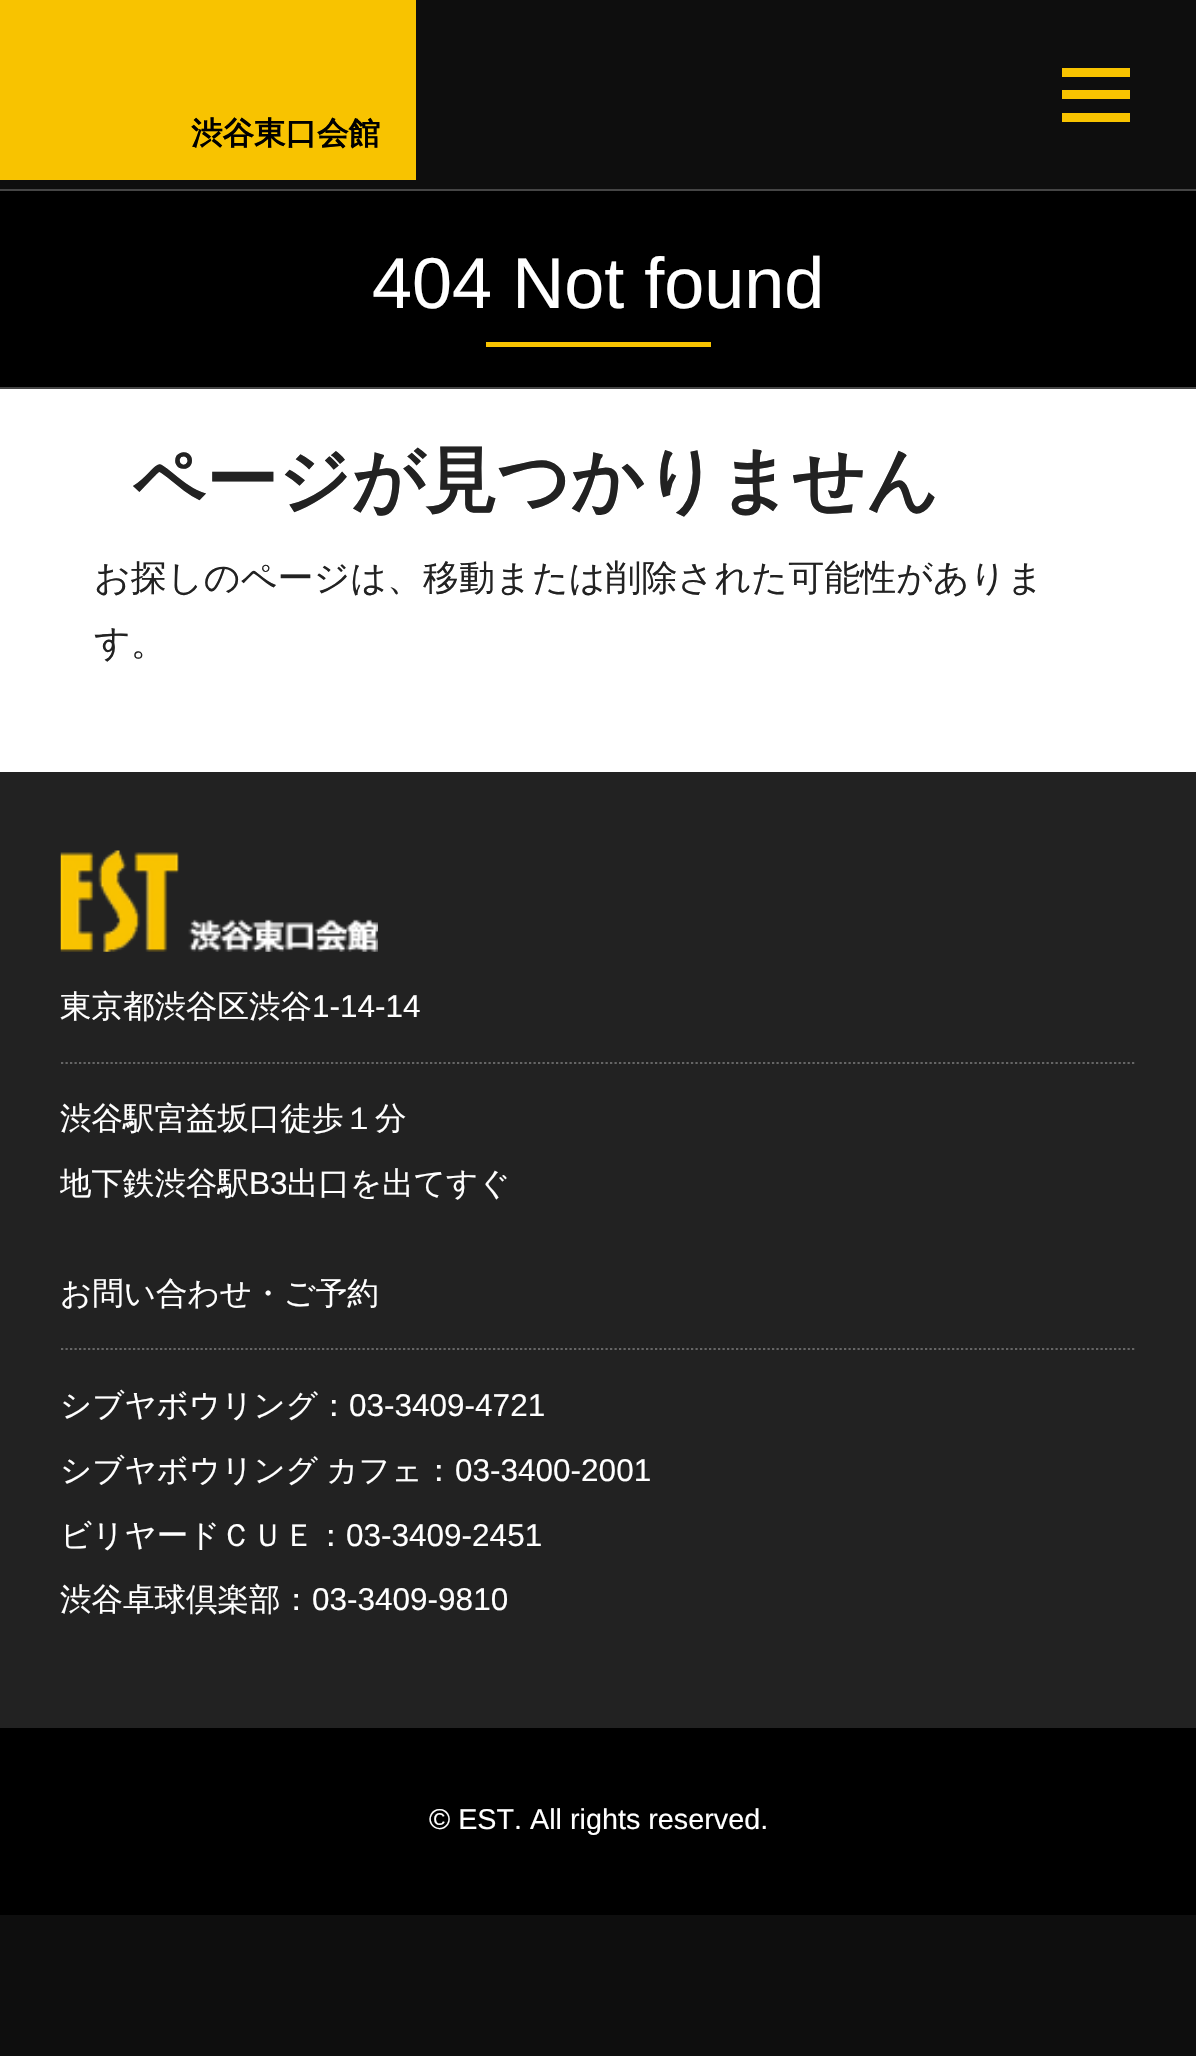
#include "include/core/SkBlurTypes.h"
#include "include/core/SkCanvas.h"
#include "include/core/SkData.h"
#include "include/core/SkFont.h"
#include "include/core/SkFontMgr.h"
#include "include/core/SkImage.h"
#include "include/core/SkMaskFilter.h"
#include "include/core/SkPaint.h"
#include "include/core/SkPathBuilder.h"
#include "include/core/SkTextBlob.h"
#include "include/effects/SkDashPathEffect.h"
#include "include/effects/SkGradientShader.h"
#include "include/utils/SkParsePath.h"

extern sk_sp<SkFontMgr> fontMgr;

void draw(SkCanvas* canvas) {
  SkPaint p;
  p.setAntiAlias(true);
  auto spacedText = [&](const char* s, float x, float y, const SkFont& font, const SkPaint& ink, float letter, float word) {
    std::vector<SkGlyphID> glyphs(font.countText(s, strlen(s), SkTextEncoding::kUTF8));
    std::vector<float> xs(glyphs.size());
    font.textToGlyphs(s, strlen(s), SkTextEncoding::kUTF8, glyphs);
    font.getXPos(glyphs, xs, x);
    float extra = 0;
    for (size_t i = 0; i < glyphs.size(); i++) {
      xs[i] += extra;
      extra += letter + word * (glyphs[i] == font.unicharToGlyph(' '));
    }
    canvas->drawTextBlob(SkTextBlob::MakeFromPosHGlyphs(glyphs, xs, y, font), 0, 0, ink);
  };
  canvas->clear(SkColorSetRGB(14, 14, 14));
  p.setColor(SkColorSetRGB(248, 195, 0));
  canvas->drawRect(SkRect::MakeLTRB(1062, 68, 1130, 77), p);
  canvas->drawRect(SkRect::MakeLTRB(1062, 90, 1130, 99), p);
  canvas->drawRect(SkRect::MakeLTRB(1062, 113, 1130, 122), p);
  p.setColor(SkColorSetRGB(69, 69, 69));
  canvas->drawRect(SkRect::MakeLTRB(0, 189, 1196, 191), p);
  p.setColor(SkColorSetRGB(248, 195, 0));
  canvas->drawRect(SkRect::MakeLTRB(0, 0, 416, 180), p);
  p.setColor(SK_ColorBLACK);
  canvas->drawRect(SkRect::MakeLTRB(0, 191, 1196, 387), p);
  p.setColor(SkColorSetRGB(69, 69, 69));
  canvas->drawRect(SkRect::MakeLTRB(0, 387, 1196, 389), p);
  p.setColor(SkColorSetRGB(248, 195, 0));
  canvas->drawRect(SkRect::MakeLTRB(486, 342, 711, 347), p);
  p.setColor(SK_ColorWHITE);
  canvas->drawRect(SkRect::MakeLTRB(0, 389, 1196, 772), p);
  p.setColor(SkColorSetRGB(34, 34, 34));
  canvas->drawRect(SkRect::MakeLTRB(0, 772, 1196, 1728), p);
  canvas->drawImageRect(SkImages::DeferredFromEncodedData(SkData::MakeFromFileName("images/1.png")), SkRect::MakeLTRB(60, 850, 378, 952), SkSamplingOptions());
  p.setStyle(SkPaint::kStroke_Style);
  p.setStrokeWidth(2.2f);
  p.setColor(SkColorSetRGB(102, 102, 102));
  p.setPathEffect(SkDashPathEffect::Make({{2.25f, 2.25f}}, 0));
  canvas->drawPath(SkPathBuilder().moveTo(61, 1063).lineTo(1136, 1063).detach(), p);
  p.setPathEffect(nullptr);
  p.setPathEffect(SkDashPathEffect::Make({{2.25f, 2.25f}}, 0));
  canvas->drawPath(SkPathBuilder().moveTo(61, 1349).lineTo(1136, 1349).detach(), p);
  p.setPathEffect(nullptr);
  p.setStyle(SkPaint::kFill_Style);
  p.setColor(SK_ColorBLACK);
  canvas->drawRect(SkRect::MakeLTRB(0, 1728, 1196, 1915), p);
  SkFont font1(fontMgr->matchFamilyStyle("WenQuanYi Zen Hei", SkFontStyle::Bold()), 31.5f);
  font1.setSubpixel(true);
  canvas->drawString("渋谷東口会館", 191, 144, font1, p);
  SkFont font2(fontMgr->matchFamilyStyle("Liberation Sans", SkFontStyle::Normal()), 72);
  font2.setSubpixel(true);
  p.setColor(SK_ColorWHITE);
  canvas->drawString("404 Not found", 372, 308, font2, p);
  SkFont font3(fontMgr->matchFamilyStyle("WenQuanYi Zen Hei", SkFontStyle::Bold()), 72);
  font3.setSubpixel(true);
  p.setColor(SkColorSetRGB(34, 34, 34));
  canvas->drawString("ページが見つかりません", 132, 505, font3, p);
  SkFont font4(fontMgr->matchFamilyStyle("WenQuanYi Zen Hei", SkFontStyle(500, SkFontStyle::kNormal_Width, SkFontStyle::kUpright_Slant)), 36);
  font4.setSubpixel(true);
  canvas->drawString("お探しのページは、移動または削除された可能性がありま", 94, 590, font4, p);
  canvas->drawString("す。", 94, 655, font4, p);
  SkFont font5(fontMgr->matchFamilyStyle("WenQuanYi Zen Hei", SkFontStyle(500, SkFontStyle::kNormal_Width, SkFontStyle::kUpright_Slant)), 31.5f);
  font5.setSubpixel(true);
  p.setColor(SK_ColorWHITE);
  canvas->drawString("東京都渋谷区渋谷", 60, 1017, font5, p);
  SkFont font6(fontMgr->matchFamilyStyle("Liberation Sans", SkFontStyle::Normal()), 31.5f);
  font6.setSubpixel(true);
  canvas->drawString("1-14-14", 312, 1017, font6, p);
  canvas->drawString("渋谷駅宮益坂口徒歩１分", 60, 1129, font5, p);
  canvas->drawString("地下鉄渋谷駅", 60, 1194, font5, p);
  canvas->drawString("B3", 249, 1194, font6, p);
  canvas->drawString("出口を出てすぐ", 287, 1194, font5, p);
  canvas->drawString("お問い合わせ・ご予約", 60, 1304, font5, p);
  canvas->drawString("シブヤボウリング：", 60, 1416, font5, p);
  canvas->drawString("03-3409-4721", 349, 1416, font6, p);
  spacedText("シブヤボウリング カフェ：", 60, 1481, font5, p, 0, -1);
  canvas->drawString("03-3400-2001", 455, 1481, font6, p);
  canvas->drawString("ビリヤードＣＵＥ：", 60, 1546, font5, p);
  canvas->drawString("03-3409-2451", 346, 1546, font6, p);
  canvas->drawString("渋谷卓球倶楽部：", 60, 1610, font5, p);
  canvas->drawString("03-3409-9810", 312, 1610, font6, p);
  SkFont font7(fontMgr->matchFamilyStyle("Liberation Sans", SkFontStyle::Normal()), 28.75f);
  font7.setSubpixel(true);
  canvas->drawString("© EST. All rights reserved.", 429, 1829, font7, p);
}
